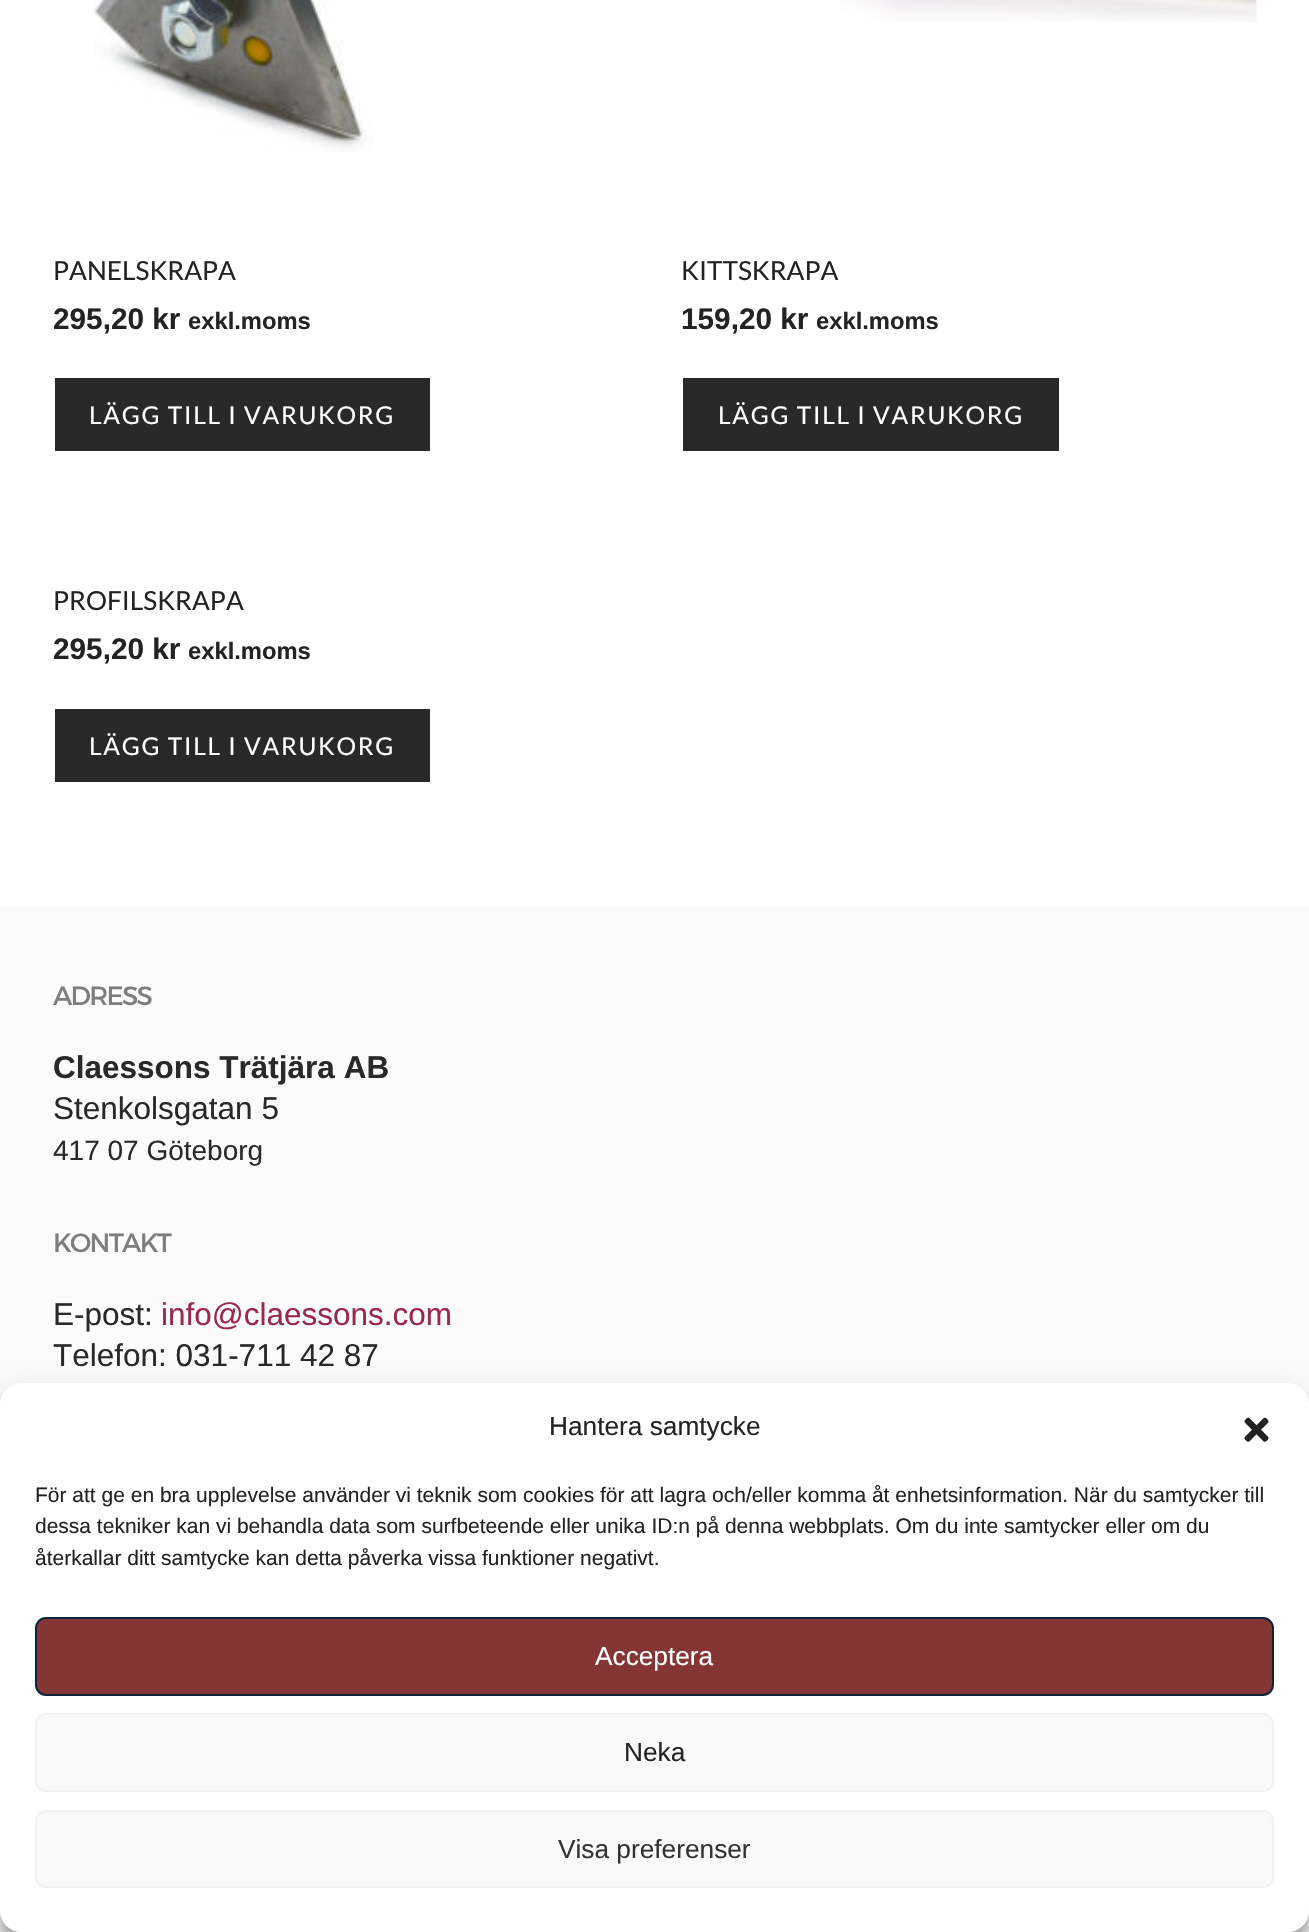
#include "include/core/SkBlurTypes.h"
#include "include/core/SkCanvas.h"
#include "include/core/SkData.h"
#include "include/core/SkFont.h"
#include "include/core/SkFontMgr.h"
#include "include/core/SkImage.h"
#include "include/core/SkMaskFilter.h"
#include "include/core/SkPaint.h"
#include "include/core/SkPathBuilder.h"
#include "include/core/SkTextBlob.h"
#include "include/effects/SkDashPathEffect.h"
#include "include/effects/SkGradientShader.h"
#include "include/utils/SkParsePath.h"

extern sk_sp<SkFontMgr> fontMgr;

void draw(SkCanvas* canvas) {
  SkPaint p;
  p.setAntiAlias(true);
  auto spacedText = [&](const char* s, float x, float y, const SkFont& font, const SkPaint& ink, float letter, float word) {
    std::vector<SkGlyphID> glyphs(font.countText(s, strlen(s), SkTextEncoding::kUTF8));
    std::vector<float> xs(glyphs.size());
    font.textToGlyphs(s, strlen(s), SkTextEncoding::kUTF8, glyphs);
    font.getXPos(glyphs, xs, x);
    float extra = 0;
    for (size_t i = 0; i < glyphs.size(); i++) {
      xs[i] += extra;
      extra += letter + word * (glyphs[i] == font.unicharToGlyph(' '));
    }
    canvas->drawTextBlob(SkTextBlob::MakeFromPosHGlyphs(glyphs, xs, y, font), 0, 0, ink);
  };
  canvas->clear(SK_ColorWHITE);
  canvas->drawImageRect(SkImages::DeferredFromEncodedData(SkData::MakeFromFileName("images/1.png")), SkRect::MakeLTRB(94, 0, 373, 152), SkSamplingOptions());
  p.setColor(SkColorSetRGB(41, 41, 41));
  canvas->drawRect(SkRect::MakeLTRB(55, 378, 430, 451), p);
  canvas->drawImageRect(SkImages::DeferredFromEncodedData(SkData::MakeFromFileName("images/2.png")), SkRect::MakeLTRB(840, 0, 1257, 22), SkSamplingOptions());
  canvas->drawRect(SkRect::MakeLTRB(683, 378, 1059, 451), p);
  canvas->drawRect(SkRect::MakeLTRB(55, 709, 430, 782), p);
  p.setColor(SkColorSetRGB(251, 251, 251));
  canvas->drawRect(SkRect::MakeLTRB(0, 907, 1309, 1932), p);
  p.setColor(SkColorSetARGB(59, 0, 0, 0));
  p.setMaskFilter(SkMaskFilter::MakeBlur(kNormal_SkBlurStyle, 5));
  canvas->drawRoundRect(SkRect::MakeLTRB(0, 1393, 1309, 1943), 21, 21, p);
  p.setMaskFilter(nullptr);
  p.setColor(SkColorSetARGB(48, 0, 0, 0));
  p.setMaskFilter(SkMaskFilter::MakeBlur(kNormal_SkBlurStyle, 17.5f));
  canvas->drawRoundRect(SkRect::MakeLTRB(0, 1400, 1309, 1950), 21, 21, p);
  p.setMaskFilter(nullptr);
  p.setColor(SK_ColorWHITE);
  canvas->drawRoundRect(SkRect::MakeLTRB(0, 1383, 1309, 1932), 21, 21, p);
  canvas->drawImageRect(SkImages::DeferredFromEncodedData(SkData::MakeFromFileName("images/3.png")), SkRect::MakeLTRB(1244, 1417, 1269, 1442), SkSamplingOptions());
  p.setColor(SkColorSetRGB(133, 53, 51));
  canvas->drawRoundRect(SkRect::MakeLTRB(36, 1618, 1273, 1695), 10, 10, p);
  p.setStyle(SkPaint::kStroke_Style);
  p.setStrokeWidth(2);
  p.setColor(SkColorSetRGB(13, 36, 59));
  canvas->drawRoundRect(SkRect::MakeLTRB(36, 1618, 1273, 1695), 10, 10, p);
  p.setStyle(SkPaint::kFill_Style);
  p.setColor(SkColorSetRGB(249, 249, 249));
  canvas->drawRoundRect(SkRect::MakeLTRB(36, 1714, 1273, 1791), 10, 10, p);
  p.setStyle(SkPaint::kStroke_Style);
  p.setColor(SkColorSetRGB(242, 242, 242));
  canvas->drawRoundRect(SkRect::MakeLTRB(36, 1714, 1273, 1791), 10, 10, p);
  p.setStyle(SkPaint::kFill_Style);
  p.setColor(SkColorSetRGB(249, 249, 249));
  canvas->drawRoundRect(SkRect::MakeLTRB(36, 1811, 1273, 1887), 10, 10, p);
  p.setStyle(SkPaint::kStroke_Style);
  p.setColor(SkColorSetRGB(242, 242, 242));
  canvas->drawRoundRect(SkRect::MakeLTRB(36, 1811, 1273, 1887), 10, 10, p);
  SkFont font1(fontMgr->matchFamilyStyle("Lato", SkFontStyle::Normal()), 26.25f);
  font1.setSubpixel(true);
  p.setStyle(SkPaint::kFill_Style);
  p.setColor(SkColorSetRGB(35, 35, 35));
  canvas->drawString("PANELSKRAPA", 53, 280, font1, p);
  SkFont font2(fontMgr->matchFamilyStyle("Liberation Sans", SkFontStyle::Bold()), 29.75f);
  font2.setSubpixel(true);
  canvas->drawString("295,20 kr", 53, 329, font2, p);
  SkFont font3(fontMgr->matchFamilyStyle("Liberation Sans", SkFontStyle::Bold()), 23.75f);
  font3.setSubpixel(true);
  canvas->drawString("exkl.moms", 188, 329, font3, p);
  SkFont font4(fontMgr->matchFamilyStyle("Lato", SkFontStyle::Normal()), 24.5f);
  font4.setSubpixel(true);
  p.setColor(SK_ColorWHITE);
  spacedText("LÄGG TILL I VARUKORG", 89, 424, font4, p, 1.75f, 0);
  p.setColor(SkColorSetRGB(35, 35, 35));
  canvas->drawString("KITTSKRAPA", 681, 280, font1, p);
  canvas->drawString("159,20 kr", 681, 329, font2, p);
  canvas->drawString("exkl.moms", 816, 329, font3, p);
  p.setColor(SK_ColorWHITE);
  spacedText("LÄGG TILL I VARUKORG", 718, 424, font4, p, 1.75f, 0);
  p.setColor(SkColorSetRGB(35, 35, 35));
  canvas->drawString("PROFILSKRAPA", 53, 610, font1, p);
  canvas->drawString("295,20 kr", 53, 659, font2, p);
  canvas->drawString("exkl.moms", 188, 659, font3, p);
  p.setColor(SK_ColorWHITE);
  spacedText("LÄGG TILL I VARUKORG", 89, 755, font4, p, 1.75f, 0);
  SkFont font5(fontMgr->matchFamilyStyle("Alexandria", SkFontStyle::Normal()), 26.25f);
  font5.setSubpixel(true);
  p.setColor(SkColorSetRGB(126, 126, 126));
  spacedText("ADRESS", 53, 1005, font5, p, -1.75f, 0);
  SkFont font6(fontMgr->matchFamilyStyle("Liberation Sans", SkFontStyle::Bold()), 31.5f);
  font6.setSubpixel(true);
  p.setColor(SkColorSetRGB(40, 42, 42));
  canvas->drawString("Claessons Trätjära AB", 53, 1078, font6, p);
  SkFont font7(fontMgr->matchFamilyStyle("Liberation Sans", SkFontStyle::Normal()), 31.5f);
  font7.setSubpixel(true);
  canvas->drawString("Stenkolsgatan 5", 53, 1119, font7, p);
  SkFont font8(fontMgr->matchFamilyStyle("Liberation Sans", SkFontStyle::Normal()), 28);
  font8.setSubpixel(true);
  canvas->drawString("417 07 Göteborg", 53, 1160, font8, p);
  p.setColor(SkColorSetRGB(126, 126, 126));
  spacedText("KONTAKT", 53, 1252, font5, p, -1.75f, 0);
  p.setColor(SkColorSetRGB(40, 42, 42));
  canvas->drawString("E-post:", 53, 1325, font7, p);
  p.setColor(SkColorSetRGB(155, 40, 76));
  canvas->drawString("info@claessons.com", 161, 1325, font7, p);
  p.setColor(SkColorSetRGB(40, 42, 42));
  canvas->drawString("Telefon: 031-711 42 87", 53, 1366, font7, p);
  SkFont font9(fontMgr->matchFamilyStyle("Liberation Sans", SkFontStyle::Normal()), 26.25f);
  font9.setSubpixel(true);
  p.setColor(SkColorSetRGB(35, 35, 35));
  canvas->drawString("Hantera samtycke", 549, 1435, font9, p);
  SkFont font10(fontMgr->matchFamilyStyle("Liberation Sans", SkFontStyle::Normal()), 21);
  font10.setSubpixel(true);
  canvas->drawString("För att ge en bra upplevelse använder vi teknik som cookies för att lagra och/eller komma åt enhetsinformation. När du samtycker till", 35, 1502, font10, p);
  canvas->drawString("dessa tekniker kan vi behandla data som surfbeteende eller unika ID:n på denna webbplats. Om du inte samtycker eller om du", 35, 1533, font10, p);
  canvas->drawString("återkallar ditt samtycke kan detta påverka vissa funktioner negativt.", 35, 1565, font10, p);
  p.setColor(SK_ColorWHITE);
  canvas->drawString("Acceptera", 595, 1665, font9, p);
  p.setColor(SkColorSetRGB(35, 35, 35));
  canvas->drawString("Neka", 624, 1761, font9, p);
  p.setColor(SkColorSetRGB(51, 51, 51));
  canvas->drawString("Visa preferenser", 558, 1858, font9, p);
}
